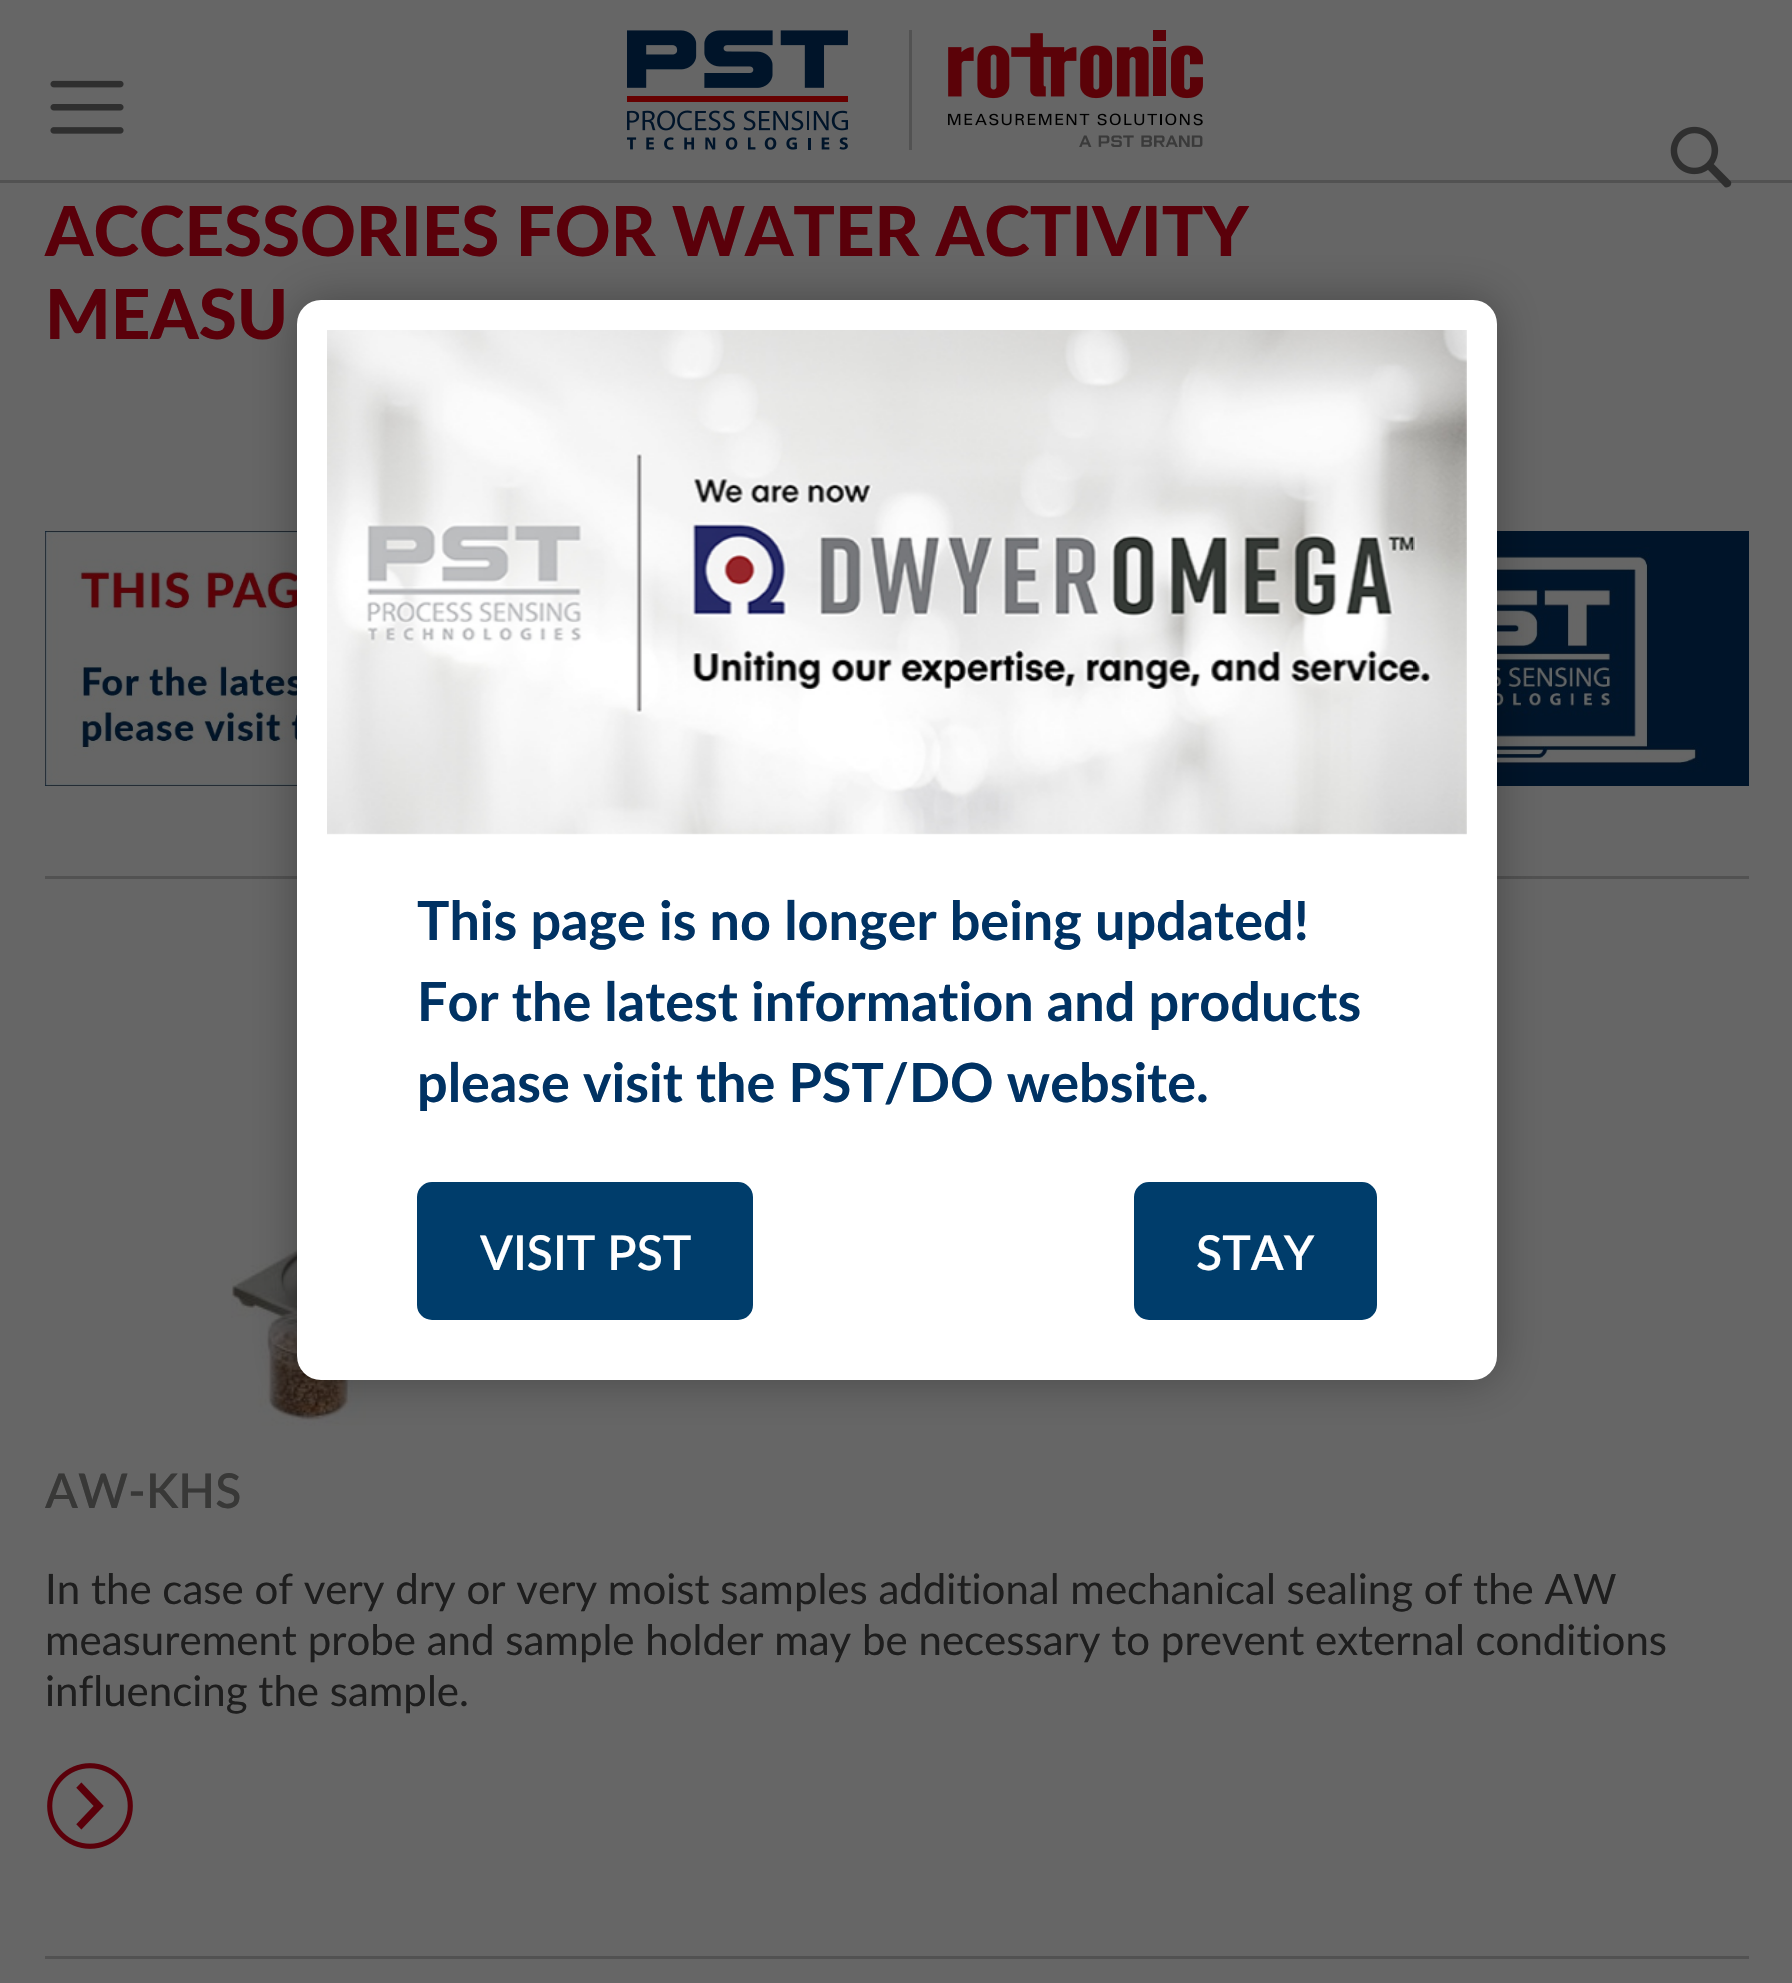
#include "include/core/SkBlurTypes.h"
#include "include/core/SkCanvas.h"
#include "include/core/SkData.h"
#include "include/core/SkFont.h"
#include "include/core/SkFontMgr.h"
#include "include/core/SkImage.h"
#include "include/core/SkMaskFilter.h"
#include "include/core/SkPaint.h"
#include "include/core/SkPathBuilder.h"
#include "include/core/SkTextBlob.h"
#include "include/effects/SkDashPathEffect.h"
#include "include/effects/SkGradientShader.h"
#include "include/utils/SkParsePath.h"

extern sk_sp<SkFontMgr> fontMgr;

void draw(SkCanvas* canvas) {
  SkPaint p;
  p.setAntiAlias(true);
  canvas->clear(SkColorSetRGB(102, 102, 102));
  p.setColor(SkColorSetRGB(82, 82, 82));
  canvas->drawRect(SkRect::MakeLTRB(0, 180, 1792, 183), p);
  canvas->drawImageRect(SkImages::DeferredFromEncodedData(SkData::MakeFromFileName("images/1.png")), SkRect::MakeLTRB(50, 80, 124, 134), SkSamplingOptions());
  canvas->drawRect(SkRect::MakeLTRB(909, 30, 912, 150), p);
  canvas->drawImageRect(SkImages::DeferredFromEncodedData(SkData::MakeFromFileName("images/2.png")), SkRect::MakeLTRB(627, 30, 848, 150), SkSamplingOptions());
  canvas->drawImageRect(SkImages::DeferredFromEncodedData(SkData::MakeFromFileName("images/3.png")), SkRect::MakeLTRB(948, 30, 1203, 147), SkSamplingOptions());
  canvas->drawImageRect(SkImages::DeferredFromEncodedData(SkData::MakeFromFileName("images/4.png")), SkRect::MakeLTRB(1670, 126, 1732, 188), SkSamplingOptions());
  canvas->drawImageRect(SkImages::DeferredFromEncodedData(SkData::MakeFromFileName("images/5.png")), SkRect::MakeLTRB(45, 531, 1749, 786), SkSamplingOptions());
  canvas->drawRect(SkRect::MakeLTRB(45, 876, 1749, 879), p);
  canvas->drawImageRect(SkImages::DeferredFromEncodedData(SkData::MakeFromFileName("images/6.png")), SkRect::MakeLTRB(231, 939, 595, 1426), SkSamplingOptions());
  canvas->drawImageRect(SkImages::DeferredFromEncodedData(SkData::MakeFromFileName("images/7.png")), SkRect::MakeLTRB(47, 1763, 133, 1849), SkSamplingOptions());
  canvas->drawRect(SkRect::MakeLTRB(45, 1956, 1749, 1959), p);
  p.setColor(SkColorSetARGB(77, 0, 0, 0));
  p.setMaskFilter(SkMaskFilter::MakeBlur(kNormal_SkBlurStyle, 22.5f));
  canvas->drawRoundRect(SkRect::MakeLTRB(297, 300, 1497, 1380), 24, 24, p);
  p.setMaskFilter(nullptr);
  p.setColor(SK_ColorWHITE);
  canvas->drawRoundRect(SkRect::MakeLTRB(297, 300, 1497, 1380), 24, 24, p);
  canvas->drawImageRect(SkImages::DeferredFromEncodedData(SkData::MakeFromFileName("images/8.png")), SkRect::MakeLTRB(327, 330, 1467, 835), SkSamplingOptions());
  p.setColor(SkColorSetRGB(0, 61, 107));
  canvas->drawRoundRect(SkRect::MakeLTRB(418.5f, 1183.5f, 751.5f, 1318.5f), 13.5f, 13.5f, p);
  p.setStyle(SkPaint::kStroke_Style);
  p.setStrokeWidth(3);
  canvas->drawRoundRect(SkRect::MakeLTRB(418.5f, 1183.5f, 751.5f, 1318.5f), 13.5f, 13.5f, p);
  p.setStyle(SkPaint::kFill_Style);
  canvas->drawRoundRect(SkRect::MakeLTRB(1135.5f, 1183.5f, 1375.5f, 1318.5f), 13.5f, 13.5f, p);
  p.setStyle(SkPaint::kStroke_Style);
  canvas->drawRoundRect(SkRect::MakeLTRB(1135.5f, 1183.5f, 1375.5f, 1318.5f), 13.5f, 13.5f, p);
  SkFont font1(fontMgr->matchFamilyStyle("Lato", SkFontStyle(900, SkFontStyle::kNormal_Width, SkFontStyle::kUpright_Slant)), 69);
  font1.setSubpixel(true);
  p.setStyle(SkPaint::kFill_Style);
  p.setColor(SkColorSetRGB(90, 0, 10));
  canvas->drawString("ACCESSORIES FOR WATER ACTIVITY", 45, 256, font1, p);
  canvas->drawString("MEASU", 45, 339, font1, p);
  SkFont font2(fontMgr->matchFamilyStyle("Lato", SkFontStyle(600, SkFontStyle::kNormal_Width, SkFontStyle::kUpright_Slant)), 48);
  font2.setSubpixel(true);
  p.setColor(SkColorSetRGB(56, 56, 55));
  canvas->drawString("AW-KHS", 45, 1508, font2, p);
  SkFont font3(fontMgr->matchFamilyStyle("Lato", SkFontStyle::Normal()), 42);
  font3.setSubpixel(true);
  p.setColor(SkColorSetRGB(30, 30, 30));
  canvas->drawString("In the case of very dry or very moist samples additional mechanical sealing of the AW", 45, 1604, font3, p);
  canvas->drawString("measurement probe and sample holder may be necessary to prevent external conditions", 45, 1655, font3, p);
  canvas->drawString("influencing the sample.", 45, 1706, font3, p);
  SkFont font4(fontMgr->matchFamilyStyle("Lato", SkFontStyle::Bold()), 54);
  font4.setSubpixel(true);
  p.setColor(SkColorSetRGB(0, 50, 99));
  canvas->drawString("This page is no longer being updated!", 417, 940, font4, p);
  canvas->drawString("For the latest information and products", 417, 1021, font4, p);
  canvas->drawString("please visit the PST/DO website.", 417, 1102, font4, p);
  p.setColor(SK_ColorWHITE);
  canvas->drawString("VISIT PST", 480, 1270, font2, p);
  canvas->drawString("STAY", 1196, 1270, font2, p);
}
